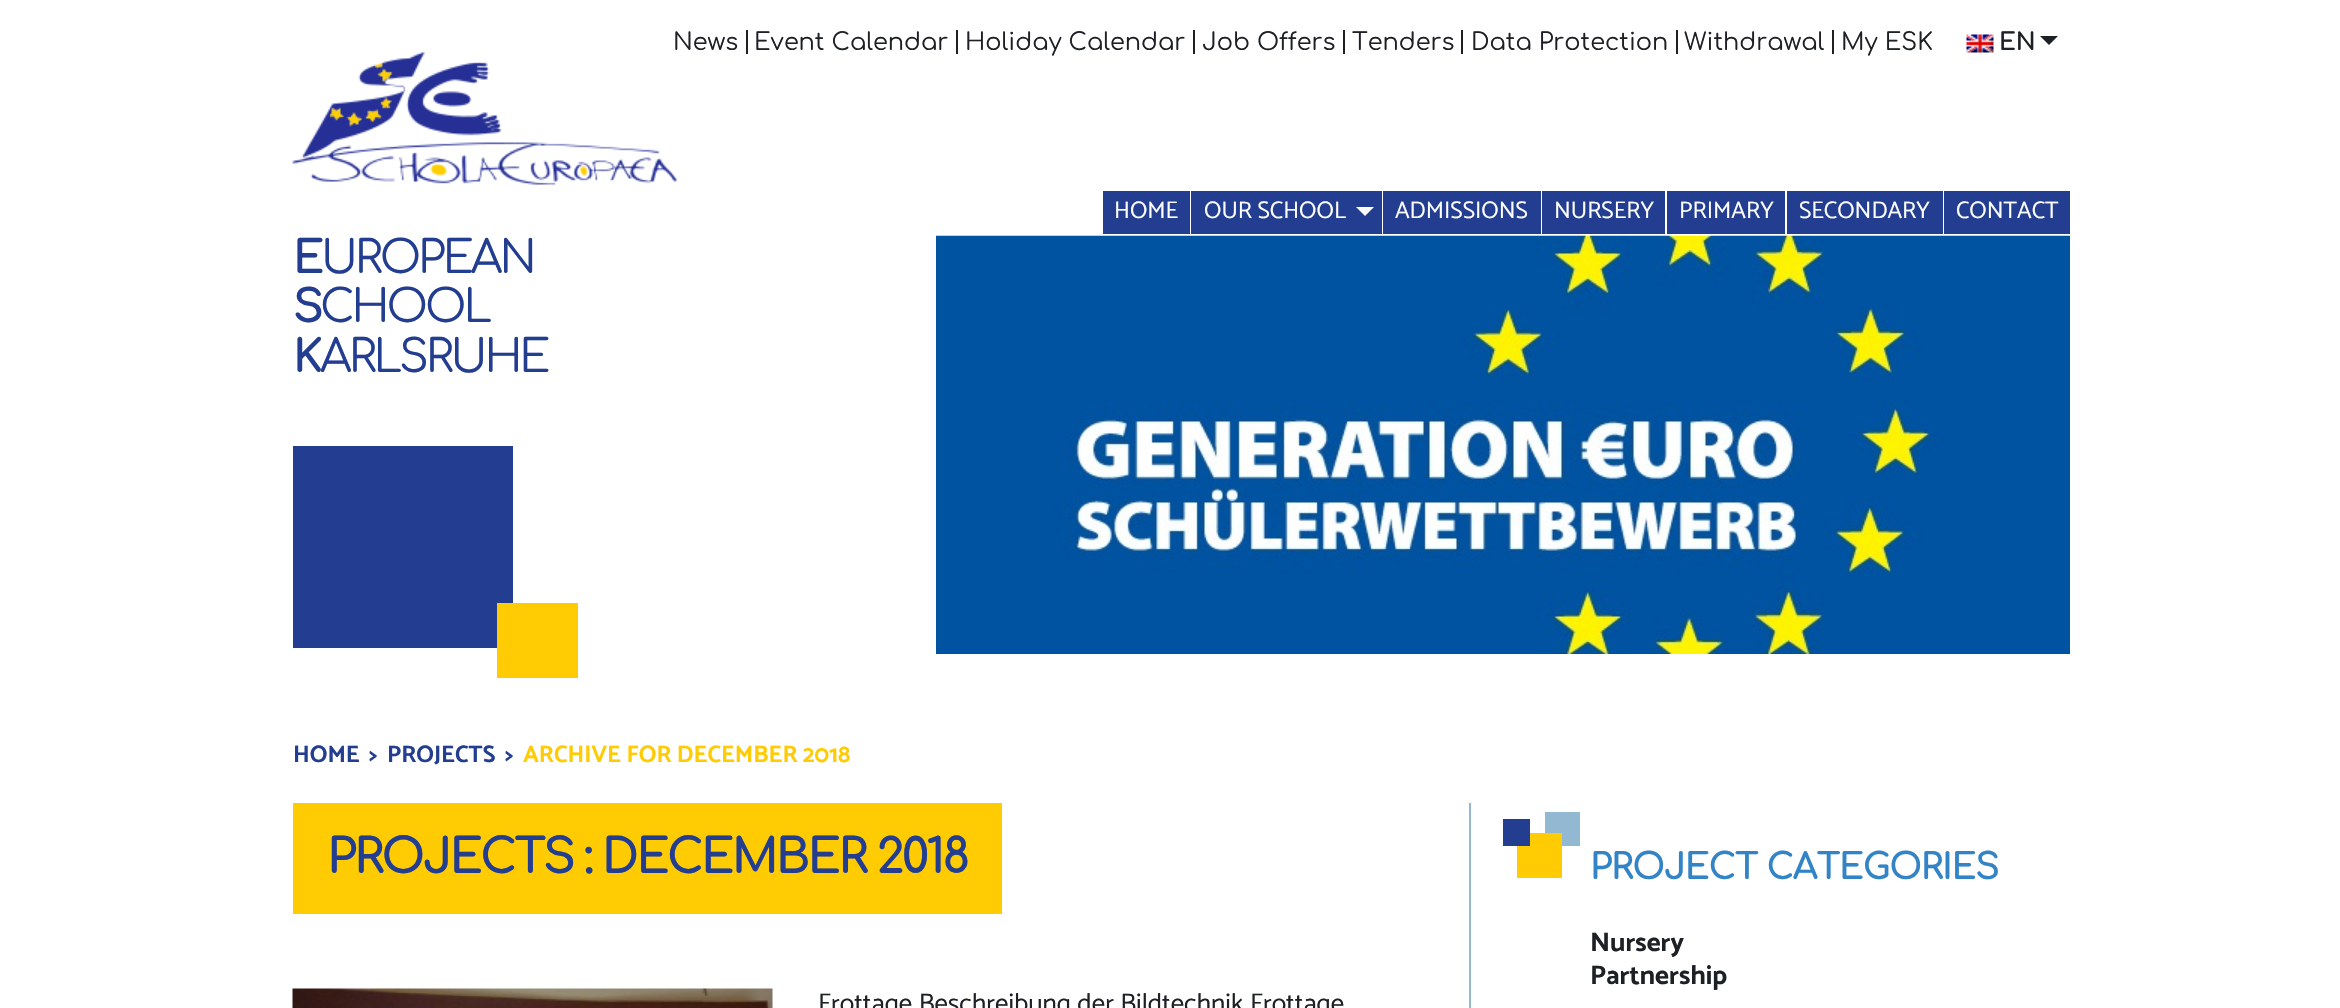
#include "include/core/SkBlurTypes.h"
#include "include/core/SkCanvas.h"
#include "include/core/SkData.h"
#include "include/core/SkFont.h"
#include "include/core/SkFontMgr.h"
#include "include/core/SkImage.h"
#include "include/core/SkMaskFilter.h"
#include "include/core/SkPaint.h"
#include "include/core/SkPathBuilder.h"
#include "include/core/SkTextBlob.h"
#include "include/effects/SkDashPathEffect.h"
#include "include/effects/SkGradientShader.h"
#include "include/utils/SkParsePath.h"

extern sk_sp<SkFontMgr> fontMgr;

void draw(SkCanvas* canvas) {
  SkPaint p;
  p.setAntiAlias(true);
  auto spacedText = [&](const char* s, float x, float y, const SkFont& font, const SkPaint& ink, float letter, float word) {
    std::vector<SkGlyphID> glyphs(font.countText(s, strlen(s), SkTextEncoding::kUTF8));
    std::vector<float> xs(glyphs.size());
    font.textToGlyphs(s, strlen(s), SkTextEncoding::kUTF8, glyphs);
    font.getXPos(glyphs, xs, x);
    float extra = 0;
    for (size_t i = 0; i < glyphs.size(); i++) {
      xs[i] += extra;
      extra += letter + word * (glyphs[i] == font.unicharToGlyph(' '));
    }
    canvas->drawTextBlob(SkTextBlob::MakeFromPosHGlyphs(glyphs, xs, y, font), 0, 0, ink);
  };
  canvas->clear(SK_ColorWHITE);
  p.setColor(SkColorSetRGB(29, 33, 37));
  canvas->drawRect(SkRect::MakeLTRB(746, 30, 748, 54), p);
  canvas->drawRect(SkRect::MakeLTRB(956, 30, 958, 54), p);
  canvas->drawRect(SkRect::MakeLTRB(1193, 30, 1195, 54), p);
  canvas->drawRect(SkRect::MakeLTRB(1343, 30, 1345, 54), p);
  canvas->drawRect(SkRect::MakeLTRB(1461, 30, 1463, 54), p);
  canvas->drawRect(SkRect::MakeLTRB(1676, 30, 1678, 54), p);
  canvas->drawRect(SkRect::MakeLTRB(1832, 30, 1834, 54), p);
  canvas->drawImageRect(SkImages::DeferredFromEncodedData(SkData::MakeFromFileName("images/1.png")), SkRect::MakeLTRB(1966, 34, 1994, 53), SkSamplingOptions());
  canvas->drawPath(SkPathBuilder().moveTo(2040, 36).lineTo(2058, 36).lineTo(2049, 45).close().detach(), p);
  canvas->drawImageRect(SkImages::DeferredFromEncodedData(SkData::MakeFromFileName("images/2.png")), SkRect::MakeLTRB(292, 52, 677, 185), SkSamplingOptions());
  p.setColor(SkColorSetRGB(35, 62, 144));
  canvas->drawRect(SkRect::MakeLTRB(1103, 191, 1190, 234), p);
  canvas->drawRect(SkRect::MakeLTRB(1191, 191, 1382, 234), p);
  p.setColor(SK_ColorWHITE);
  canvas->drawPath(SkPathBuilder().moveTo(1356, 207).lineTo(1374, 207).lineTo(1365, 216).close().detach(), p);
  p.setColor(SkColorSetRGB(35, 62, 144));
  canvas->drawRect(SkRect::MakeLTRB(1383, 191, 1541, 234), p);
  canvas->drawRect(SkRect::MakeLTRB(1542, 191, 1665, 234), p);
  canvas->drawRect(SkRect::MakeLTRB(1667, 191, 1785, 234), p);
  canvas->drawRect(SkRect::MakeLTRB(1787, 191, 1943, 234), p);
  canvas->drawRect(SkRect::MakeLTRB(1944, 191, 2070, 234), p);
  canvas->drawRect(SkRect::MakeLTRB(293, 446, 513, 648), p);
  p.setColor(SkColorSetRGB(255, 204, 4));
  canvas->drawRect(SkRect::MakeLTRB(497, 603, 578, 678), p);
  canvas->drawImageRect(SkImages::DeferredFromEncodedData(SkData::MakeFromFileName("images/3.png")), SkRect::MakeLTRB(936, 235, 2070, 654), SkSamplingOptions());
  p.setColor(SkColorSetRGB(147, 184, 209));
  canvas->drawRect(SkRect::MakeLTRB(1469, 803, 1471, 1008), p);
  p.setColor(SkColorSetRGB(255, 204, 4));
  canvas->drawRect(SkRect::MakeLTRB(293, 803, 1002, 914), p);
  canvas->drawImageRect(SkImages::DeferredFromEncodedData(SkData::MakeFromFileName("images/4.png")), SkRect::MakeLTRB(292, 988, 773, 1008), SkSamplingOptions());
  p.setColor(SkColorSetRGB(147, 184, 209));
  canvas->drawRect(SkRect::MakeLTRB(1545, 812, 1580, 846), p);
  p.setColor(SkColorSetRGB(255, 204, 4));
  canvas->drawRect(SkRect::MakeLTRB(1517, 833, 1562, 878), p);
  p.setColor(SkColorSetRGB(35, 62, 144));
  canvas->drawRect(SkRect::MakeLTRB(1503, 819, 1530, 846), p);
  SkFont font1(fontMgr->matchFamilyStyle("Comfortaa", SkFontStyle::Normal()), 24);
  font1.setSubpixel(true);
  p.setColor(SkColorSetRGB(29, 33, 37));
  canvas->drawString("News", 673, 50, font1, p);
  canvas->drawString("Event Calendar", 754, 50, font1, p);
  canvas->drawString("Holiday Calendar", 965, 50, font1, p);
  canvas->drawString("Job Offers", 1202, 50, font1, p);
  canvas->drawString("Tenders", 1352, 50, font1, p);
  canvas->drawString("Data Protection", 1471, 50, font1, p);
  canvas->drawString("Withdrawal", 1684, 50, font1, p);
  canvas->drawString("My ESK", 1841, 50, font1, p);
  SkFont font2(fontMgr->matchFamilyStyle("Comfortaa", SkFontStyle::Bold()), 24);
  font2.setSubpixel(true);
  canvas->drawString("EN", 1999, 50, font2, p);
  SkFont font3(fontMgr->matchFamilyStyle("Catamaran", SkFontStyle::Normal()), 24);
  font3.setSubpixel(true);
  p.setColor(SK_ColorWHITE);
  canvas->drawString("HOME", 1114, 218, font3, p);
  canvas->drawString("OUR SCHOOL", 1204, 218, font3, p);
  canvas->drawString("ADMISSIONS", 1395, 218, font3, p);
  canvas->drawString("NURSERY", 1554, 218, font3, p);
  canvas->drawString("PRIMARY", 1679, 218, font3, p);
  canvas->drawString("SECONDARY", 1799, 218, font3, p);
  canvas->drawString("CONTACT", 1956, 218, font3, p);
  SkFont font4(fontMgr->matchFamilyStyle("Comfortaa", SkFontStyle::Bold()), 45);
  font4.setSubpixel(true);
  p.setColor(SkColorSetRGB(35, 62, 144));
  spacedText("E", 293, 273, font4, p, -3, 0);
  SkFont font5(fontMgr->matchFamilyStyle("Comfortaa", SkFontStyle::Normal()), 45);
  font5.setSubpixel(true);
  spacedText("UROPEAN", 321, 273, font5, p, -3, 0);
  spacedText("S", 293, 322, font4, p, -3, 0);
  spacedText("CHOOL", 320, 322, font5, p, -3, 0);
  spacedText("K", 293, 372, font4, p, -3, 0);
  spacedText("ARLSRUHE", 320, 372, font5, p, -3, 0);
  SkFont font6(fontMgr->matchFamilyStyle("Catamaran", SkFontStyle::Bold()), 24);
  font6.setSubpixel(true);
  canvas->drawString("HOME", 293, 762, font6, p);
  canvas->drawString(">", 369, 762, font6, p);
  canvas->drawString("PROJECTS", 387, 762, font6, p);
  canvas->drawString(">", 505, 762, font6, p);
  p.setColor(SkColorSetRGB(255, 204, 4));
  canvas->drawString("ARCHIVE FOR DECEMBER 2018", 523, 762, font6, p);
  SkFont font7(fontMgr->matchFamilyStyle("Comfortaa", SkFontStyle::Bold()), 48);
  font7.setSubpixel(true);
  p.setColor(SkColorSetRGB(35, 62, 144));
  spacedText("PROJECTS : DECEMBER 2018", 327, 873, font7, p, -3, 0);
  SkFont font8(fontMgr->matchFamilyStyle("Catamaran", SkFontStyle::Normal()), 27);
  font8.setSubpixel(true);
  p.setColor(SkColorSetRGB(29, 33, 37));
  canvas->drawString("Frottage Beschreibung der Bildtechnik Frottage", 818, 1012, font8, p);
  SkFont font9(fontMgr->matchFamilyStyle("Comfortaa", SkFontStyle::Bold()), 36);
  font9.setSubpixel(true);
  p.setColor(SkColorSetRGB(50, 132, 198));
  spacedText("PROJECT CATEGORIES", 1590, 879, font9, p, -1.5f, 0);
  SkFont font10(fontMgr->matchFamilyStyle("Catamaran", SkFontStyle::Bold()), 27);
  font10.setSubpixel(true);
  p.setColor(SkColorSetRGB(29, 33, 37));
  canvas->drawString("Nursery", 1590, 951, font10, p);
  canvas->drawString("Partnership", 1590, 984, font10, p);
}
